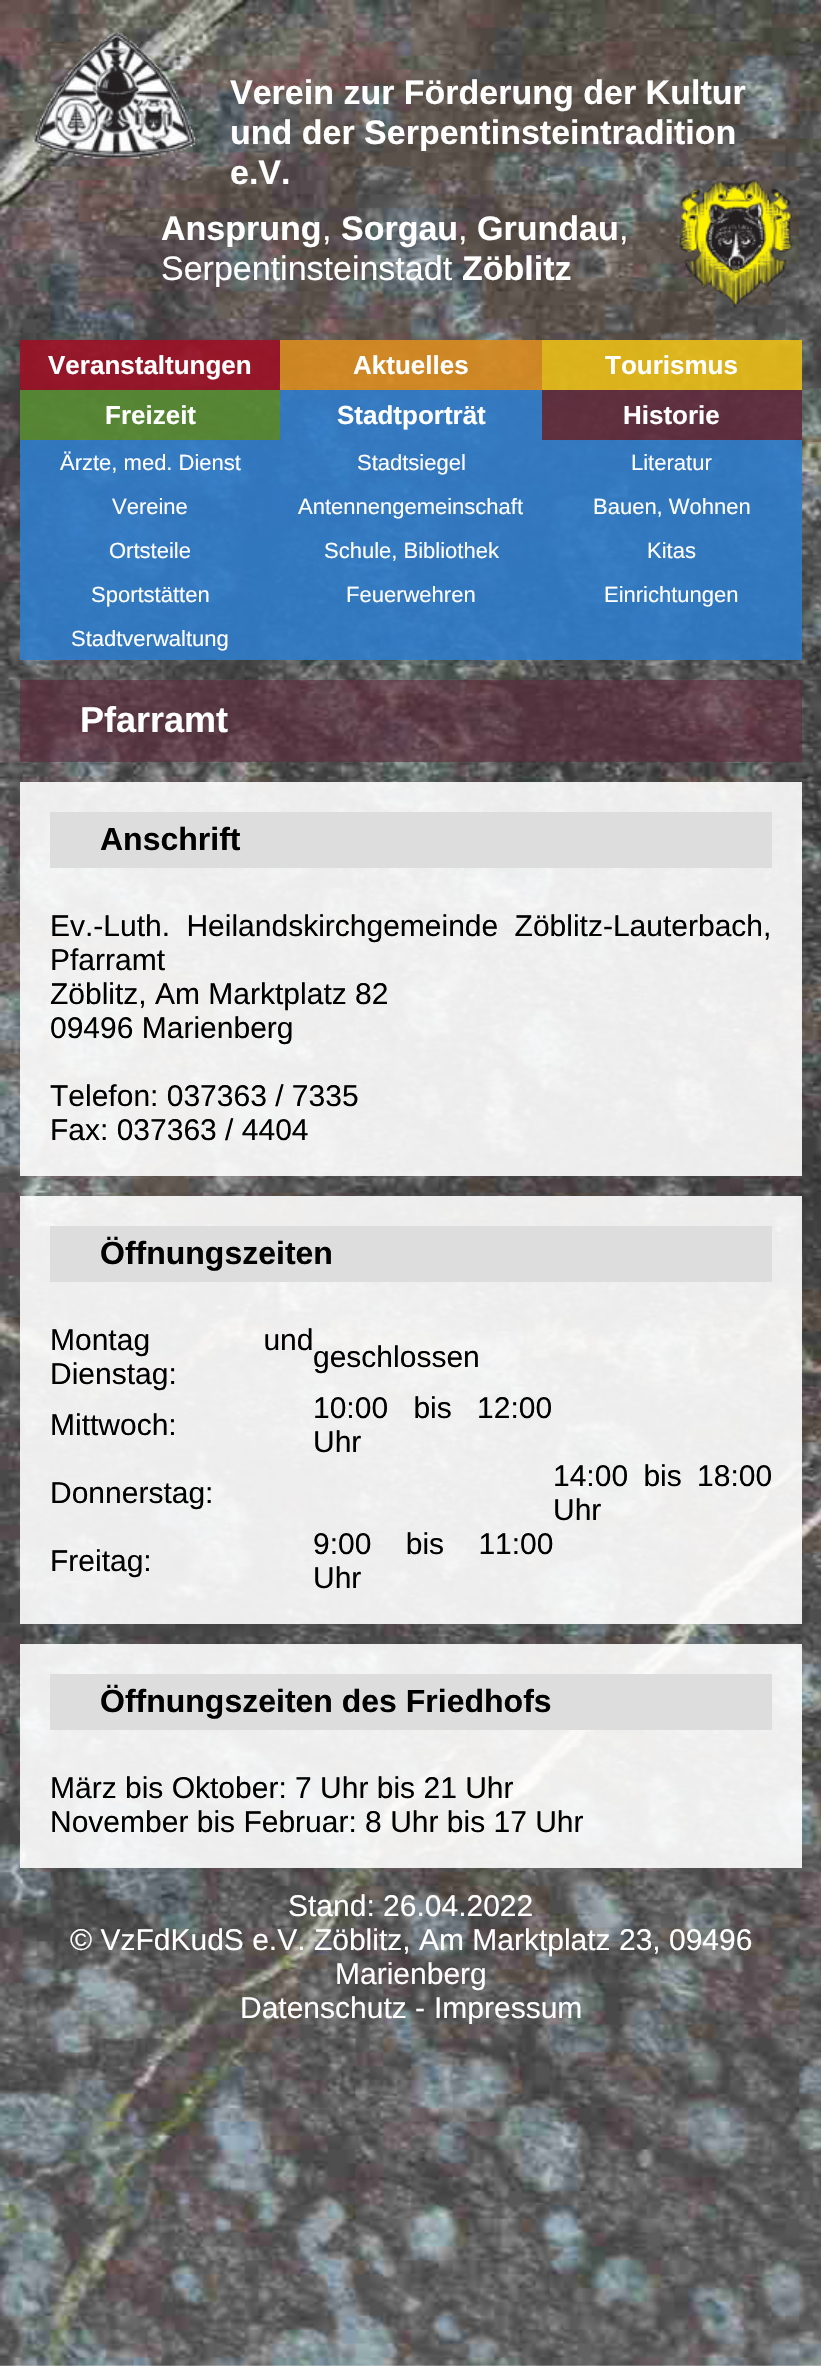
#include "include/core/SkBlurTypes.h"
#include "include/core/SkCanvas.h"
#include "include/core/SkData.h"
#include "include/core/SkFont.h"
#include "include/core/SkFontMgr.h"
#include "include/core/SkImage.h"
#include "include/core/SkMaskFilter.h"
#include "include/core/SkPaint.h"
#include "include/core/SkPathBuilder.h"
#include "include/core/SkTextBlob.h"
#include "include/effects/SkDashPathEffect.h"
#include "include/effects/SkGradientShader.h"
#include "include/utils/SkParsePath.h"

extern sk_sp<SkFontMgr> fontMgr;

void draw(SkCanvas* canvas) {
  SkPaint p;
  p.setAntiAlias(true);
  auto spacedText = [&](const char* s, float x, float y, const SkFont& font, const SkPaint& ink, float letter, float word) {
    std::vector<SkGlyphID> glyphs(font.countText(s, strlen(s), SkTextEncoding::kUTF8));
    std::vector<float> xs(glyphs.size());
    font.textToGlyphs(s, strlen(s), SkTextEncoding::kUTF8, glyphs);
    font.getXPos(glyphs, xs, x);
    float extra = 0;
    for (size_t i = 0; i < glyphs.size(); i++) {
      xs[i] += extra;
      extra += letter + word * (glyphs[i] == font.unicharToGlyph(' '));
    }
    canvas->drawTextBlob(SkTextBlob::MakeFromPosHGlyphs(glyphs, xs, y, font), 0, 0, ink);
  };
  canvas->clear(SK_ColorWHITE);
  canvas->drawImageRect(SkImages::DeferredFromEncodedData(SkData::MakeFromFileName("images/1.png")), SkRect::MakeLTRB(0, 0, 821, 2366), SkSamplingOptions());
  canvas->drawImageRect(SkImages::DeferredFromEncodedData(SkData::MakeFromFileName("images/2.png")), SkRect::MakeLTRB(32, 31, 196, 159), SkSamplingOptions());
  canvas->drawImageRect(SkImages::DeferredFromEncodedData(SkData::MakeFromFileName("images/3.png")), SkRect::MakeLTRB(679, 180, 792, 310), SkSamplingOptions());
  p.setColor(SkColorSetARGB(230, 155, 17, 37));
  canvas->drawRect(SkRect::MakeLTRB(20, 340, 280, 390), p);
  p.setColor(SkColorSetARGB(230, 217, 140, 31));
  canvas->drawRect(SkRect::MakeLTRB(280, 340, 542, 390), p);
  p.setColor(SkColorSetARGB(230, 233, 188, 22));
  canvas->drawRect(SkRect::MakeLTRB(542, 340, 802, 390), p);
  p.setColor(SkColorSetARGB(230, 86, 140, 50));
  canvas->drawRect(SkRect::MakeLTRB(20, 390, 280, 440), p);
  p.setColor(SkColorSetARGB(230, 47, 124, 203));
  canvas->drawRect(SkRect::MakeLTRB(280, 390, 542, 440), p);
  p.setColor(SkColorSetARGB(230, 94, 42, 60));
  canvas->drawRect(SkRect::MakeLTRB(542, 390, 802, 440), p);
  p.setColor(SkColorSetARGB(230, 47, 124, 203));
  canvas->drawRect(SkRect::MakeLTRB(20, 440, 802, 660), p);
  p.setColor(SkColorSetARGB(153, 94, 42, 60));
  canvas->drawRect(SkRect::MakeLTRB(20, 680, 802, 762), p);
  p.setColor(SkColorSetARGB(230, 255, 255, 255));
  canvas->drawRect(SkRect::MakeLTRB(20, 782, 802, 1176), p);
  p.setColor(SkColorSetRGB(221, 221, 221));
  canvas->drawRect(SkRect::MakeLTRB(50, 812, 772, 868), p);
  p.setColor(SkColorSetARGB(230, 255, 255, 255));
  canvas->drawRect(SkRect::MakeLTRB(20, 1196, 802, 1624), p);
  p.setColor(SkColorSetRGB(221, 221, 221));
  canvas->drawRect(SkRect::MakeLTRB(50, 1226, 772, 1282), p);
  p.setColor(SkColorSetARGB(230, 255, 255, 255));
  canvas->drawRect(SkRect::MakeLTRB(20, 1644, 802, 1868), p);
  p.setColor(SkColorSetRGB(221, 221, 221));
  canvas->drawRect(SkRect::MakeLTRB(50, 1674, 772, 1730), p);
  SkFont font1(fontMgr->matchFamilyStyle("Liberation Sans", SkFontStyle::Bold()), 34);
  font1.setSubpixel(true);
  p.setColor(SK_ColorWHITE);
  canvas->drawString("Verein zur Förderung der Kultur", 230, 104, font1, p);
  canvas->drawString("und der Serpentinsteintradition", 230, 144, font1, p);
  canvas->drawString("e.V.", 230, 184, font1, p);
  canvas->drawString("Ansprung", 161, 240, font1, p);
  SkFont font2(fontMgr->matchFamilyStyle("Liberation Sans", SkFontStyle::Normal()), 34);
  font2.setSubpixel(true);
  canvas->drawString(",", 322, 240, font2, p);
  canvas->drawString("Sorgau", 341, 240, font1, p);
  canvas->drawString(",", 458, 240, font2, p);
  canvas->drawString("Grundau", 477, 240, font1, p);
  canvas->drawString(",", 619, 240, font2, p);
  canvas->drawString("Serpentinsteinstadt", 161, 280, font2, p);
  canvas->drawString("Zöblitz", 462, 280, font1, p);
  SkFont font3(fontMgr->matchFamilyStyle("Liberation Sans", SkFontStyle::Bold()), 26);
  font3.setSubpixel(true);
  canvas->drawString("Veranstaltungen", 48, 374, font3, p);
  canvas->drawString("Aktuelles", 353, 374, font3, p);
  canvas->drawString("Tourismus", 605, 374, font3, p);
  canvas->drawString("Freizeit", 105, 424, font3, p);
  canvas->drawString("Stadtporträt", 337, 424, font3, p);
  canvas->drawString("Historie", 623, 424, font3, p);
  SkFont font4(fontMgr->matchFamilyStyle("Liberation Sans", SkFontStyle::Normal()), 22);
  font4.setSubpixel(true);
  canvas->drawString("Ärzte, med. Dienst", 60, 470, font4, p);
  canvas->drawString("Stadtsiegel", 357, 470, font4, p);
  canvas->drawString("Literatur", 631, 470, font4, p);
  canvas->drawString("Vereine", 112, 514, font4, p);
  canvas->drawString("Antennengemeinschaft", 298, 514, font4, p);
  canvas->drawString("Bauen, Wohnen", 593, 514, font4, p);
  canvas->drawString("Ortsteile", 109, 558, font4, p);
  canvas->drawString("Schule, Bibliothek", 324, 558, font4, p);
  canvas->drawString("Kitas", 647, 558, font4, p);
  canvas->drawString("Sportstätten", 91, 602, font4, p);
  canvas->drawString("Feuerwehren", 346, 602, font4, p);
  canvas->drawString("Einrichtungen", 604, 602, font4, p);
  canvas->drawString("Stadtverwaltung", 71, 646, font4, p);
  SkFont font5(fontMgr->matchFamilyStyle("Liberation Sans", SkFontStyle::Bold()), 36);
  font5.setSubpixel(true);
  canvas->drawString("Pfarramt", 80, 732, font5, p);
  SkFont font6(fontMgr->matchFamilyStyle("Liberation Sans", SkFontStyle::Bold()), 32);
  font6.setSubpixel(true);
  p.setColor(SK_ColorBLACK);
  canvas->drawString("Anschrift", 100, 850, font6, p);
  SkFont font7(fontMgr->matchFamilyStyle("Liberation Sans", SkFontStyle::Normal()), 30);
  font7.setSubpixel(true);
  spacedText("Ev.-Luth. Heilandskirchgemeinde Zöblitz-Lauterbach,", 50, 936, font7, p, 0, 8);
  canvas->drawString("Pfarramt", 50, 970, font7, p);
  canvas->drawString("Zöblitz, Am Marktplatz 82", 50, 1004, font7, p);
  canvas->drawString("09496 Marienberg", 50, 1038, font7, p);
  canvas->drawString("Telefon: 037363 / 7335", 50, 1106, font7, p);
  canvas->drawString("Fax: 037363 / 4404", 50, 1140, font7, p);
  canvas->drawString("Öffnungszeiten", 100, 1264, font6, p);
  spacedText("Montag und", 50, 1350, font7, p, 0, 105);
  canvas->drawString("Dienstag:", 50, 1384, font7, p);
  canvas->drawString("geschlossen", 313, 1367, font7, p);
  canvas->drawString("Mittwoch:", 50, 1435, font7, p);
  spacedText("10:00 bis 12:00", 313, 1418, font7, p, 0, 17);
  canvas->drawString("Uhr", 313, 1452, font7, p);
  canvas->drawString("Donnerstag:", 50, 1503, font7, p);
  spacedText("14:00 bis 18:00", 553, 1486, font7, p, 0, 7);
  canvas->drawString("Uhr", 553, 1520, font7, p);
  canvas->drawString("Freitag:", 50, 1571, font7, p);
  spacedText("9:00 bis 11:00", 313, 1554, font7, p, 0, 26);
  canvas->drawString("Uhr", 313, 1588, font7, p);
  canvas->drawString("Öffnungszeiten des Friedhofs", 100, 1712, font6, p);
  canvas->drawString("März bis Oktober: 7 Uhr bis 21 Uhr", 50, 1798, font7, p);
  canvas->drawString("November bis Februar: 8 Uhr bis 17 Uhr", 50, 1832, font7, p);
  p.setColor(SK_ColorWHITE);
  canvas->drawString("Stand: 26.04.2022", 288, 1916, font7, p);
  canvas->drawString("© VzFdKudS e.V. Zöblitz, Am Marktplatz 23, 09496", 70, 1950, font7, p);
  canvas->drawString("Marienberg", 335, 1984, font7, p);
  canvas->drawString("Datenschutz -", 240, 2018, font7, p);
  canvas->save();
  canvas->clipRect(SkRect::MakeLTRB(20, 1888, 802, 2024));
  canvas->drawString("Impressum", 434, 2018, font7, p);
  canvas->restore();
}
